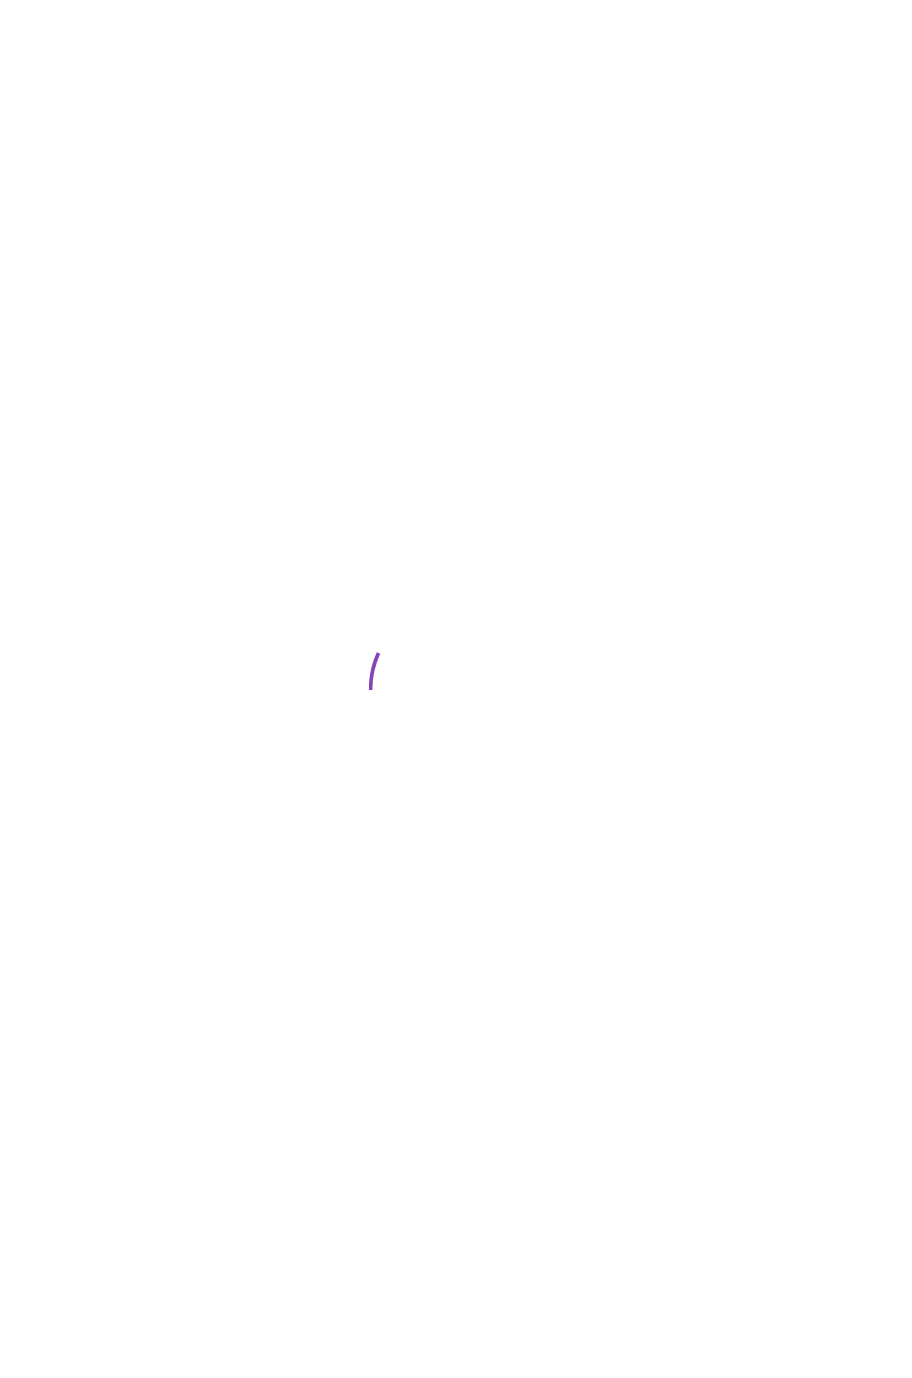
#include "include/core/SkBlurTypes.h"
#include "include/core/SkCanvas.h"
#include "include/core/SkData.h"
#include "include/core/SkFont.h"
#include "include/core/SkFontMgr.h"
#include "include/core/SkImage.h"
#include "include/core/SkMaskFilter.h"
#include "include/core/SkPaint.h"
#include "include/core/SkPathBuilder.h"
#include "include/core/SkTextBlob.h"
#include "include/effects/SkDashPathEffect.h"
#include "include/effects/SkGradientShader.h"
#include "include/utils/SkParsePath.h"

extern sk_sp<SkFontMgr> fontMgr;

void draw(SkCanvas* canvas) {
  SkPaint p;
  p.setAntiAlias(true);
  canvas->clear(SK_ColorWHITE);
  canvas->save();
  canvas->clipRect(SkRect::MakeLTRB(369, 603, 544, 690));
  p.setStyle(SkPaint::kStroke_Style);
  p.setStrokeWidth(3.8f);
  p.setColor(SkColorSetRGB(135, 66, 182));
  canvas->drawPath(SkPathBuilder().moveTo(420, 767).cubicTo(377.5f, 747, 359, 696, 378.5f, 653).detach(), p);
  canvas->restore();
}
